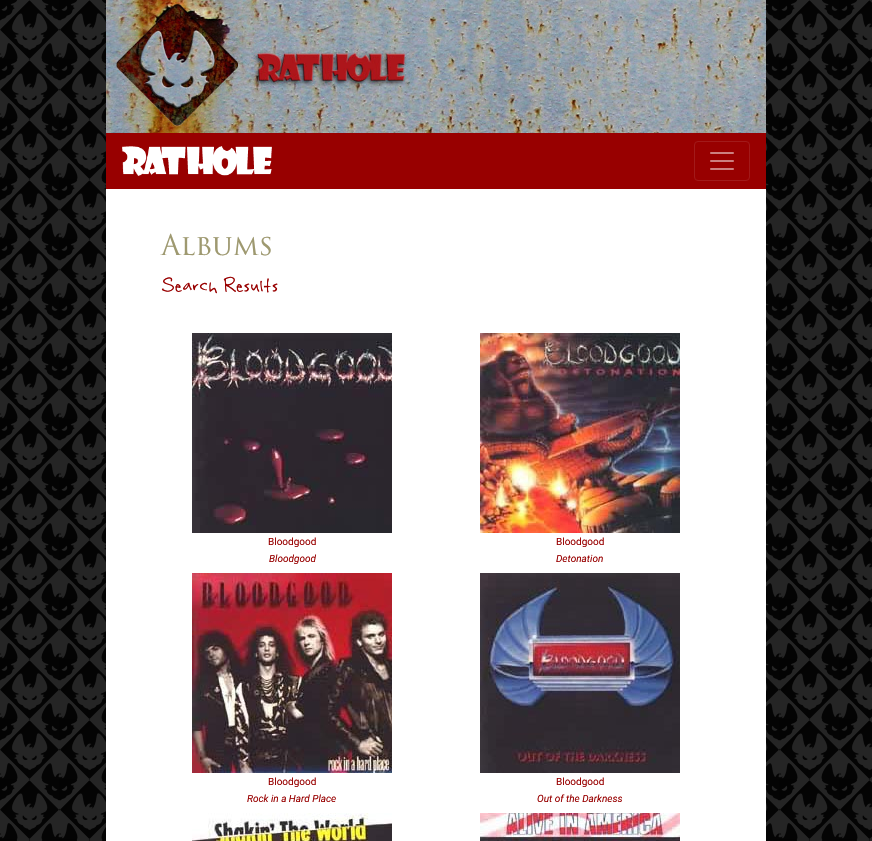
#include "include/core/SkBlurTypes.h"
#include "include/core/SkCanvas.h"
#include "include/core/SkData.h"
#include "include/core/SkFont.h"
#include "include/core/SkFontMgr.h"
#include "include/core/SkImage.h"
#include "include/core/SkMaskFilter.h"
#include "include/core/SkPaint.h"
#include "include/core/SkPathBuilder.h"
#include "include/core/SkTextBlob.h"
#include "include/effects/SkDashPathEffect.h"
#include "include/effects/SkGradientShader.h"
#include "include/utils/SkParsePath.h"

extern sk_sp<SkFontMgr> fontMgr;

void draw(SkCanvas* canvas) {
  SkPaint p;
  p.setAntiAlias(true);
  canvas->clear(SK_ColorWHITE);
  canvas->drawImageRect(SkImages::DeferredFromEncodedData(SkData::MakeFromFileName("images/1.png")), SkRect::MakeLTRB(0, 0, 872, 841), SkSamplingOptions());
  canvas->drawImageRect(SkImages::DeferredFromEncodedData(SkData::MakeFromFileName("images/2.png")), SkRect::MakeLTRB(106, 0, 766, 133), SkSamplingOptions());
  p.setColor(SkColorSetRGB(152, 0, 0));
  canvas->drawRect(SkRect::MakeLTRB(106, 133, 766, 189), p);
  canvas->drawImageRect(SkImages::DeferredFromEncodedData(SkData::MakeFromFileName("images/3.png")), SkRect::MakeLTRB(122, 146, 272, 176), SkSamplingOptions());
  p.setStyle(SkPaint::kStroke_Style);
  p.setStrokeWidth(1);
  p.setColor(SkColorSetRGB(162, 26, 26));
  canvas->drawRoundRect(SkRect::MakeLTRB(694.5f, 141.5f, 749.5f, 180.5f), 3.5f, 3.5f, p);
  canvas->drawImageRect(SkImages::DeferredFromEncodedData(SkData::MakeFromFileName("images/4.png")), SkRect::MakeLTRB(710, 152, 734, 170), SkSamplingOptions());
  p.setStyle(SkPaint::kFill_Style);
  p.setColor(SK_ColorWHITE);
  canvas->drawRect(SkRect::MakeLTRB(106, 189, 766, 841), p);
  canvas->drawImageRect(SkImages::DeferredFromEncodedData(SkData::MakeFromFileName("images/5.png")), SkRect::MakeLTRB(192, 333, 392, 533), SkSamplingOptions());
  canvas->drawImageRect(SkImages::DeferredFromEncodedData(SkData::MakeFromFileName("images/6.png")), SkRect::MakeLTRB(480, 333, 680, 533), SkSamplingOptions());
  canvas->drawImageRect(SkImages::DeferredFromEncodedData(SkData::MakeFromFileName("images/7.png")), SkRect::MakeLTRB(192, 573, 392, 773), SkSamplingOptions());
  canvas->drawImageRect(SkImages::DeferredFromEncodedData(SkData::MakeFromFileName("images/8.png")), SkRect::MakeLTRB(480, 573, 680, 773), SkSamplingOptions());
  canvas->drawImageRect(SkImages::DeferredFromEncodedData(SkData::MakeFromFileName("images/9.png")), SkRect::MakeLTRB(192, 813, 392, 841), SkSamplingOptions());
  canvas->drawImageRect(SkImages::DeferredFromEncodedData(SkData::MakeFromFileName("images/10.png")), SkRect::MakeLTRB(480, 813, 680, 841), SkSamplingOptions());
  SkFont font1(fontMgr->matchFamilyStyle("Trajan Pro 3", SkFontStyle::Normal()), 28);
  font1.setSubpixel(true);
  p.setColor(SkColorSetRGB(158, 153, 112));
  canvas->drawString("Albums", 161, 255, font1, p);
  SkFont font2(fontMgr->matchFamilyStyle("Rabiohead", SkFontStyle::Normal()), 24);
  font2.setSubpixel(true);
  p.setColor(SkColorSetRGB(152, 0, 0));
  canvas->drawString("Search Results", 161, 292, font2, p);
  SkFont font3(fontMgr->matchFamilyStyle("Roboto", SkFontStyle::Normal()), 10);
  font3.setSubpixel(true);
  canvas->drawString("Bloodgood", 268, 545, font3, p);
  SkFont font4(fontMgr->matchFamilyStyle("Roboto", SkFontStyle::Italic()), 10);
  font4.setSubpixel(true);
  canvas->drawString("Bloodgood", 269, 562, font4, p);
  canvas->drawString("Bloodgood", 556, 545, font3, p);
  canvas->drawString("Detonation", 556, 562, font4, p);
  canvas->drawString("Bloodgood", 268, 785, font3, p);
  canvas->drawString("Rock in a Hard Place", 247, 802, font4, p);
  canvas->drawString("Bloodgood", 556, 785, font3, p);
  canvas->drawString("Out of the Darkness", 537, 802, font4, p);
}
